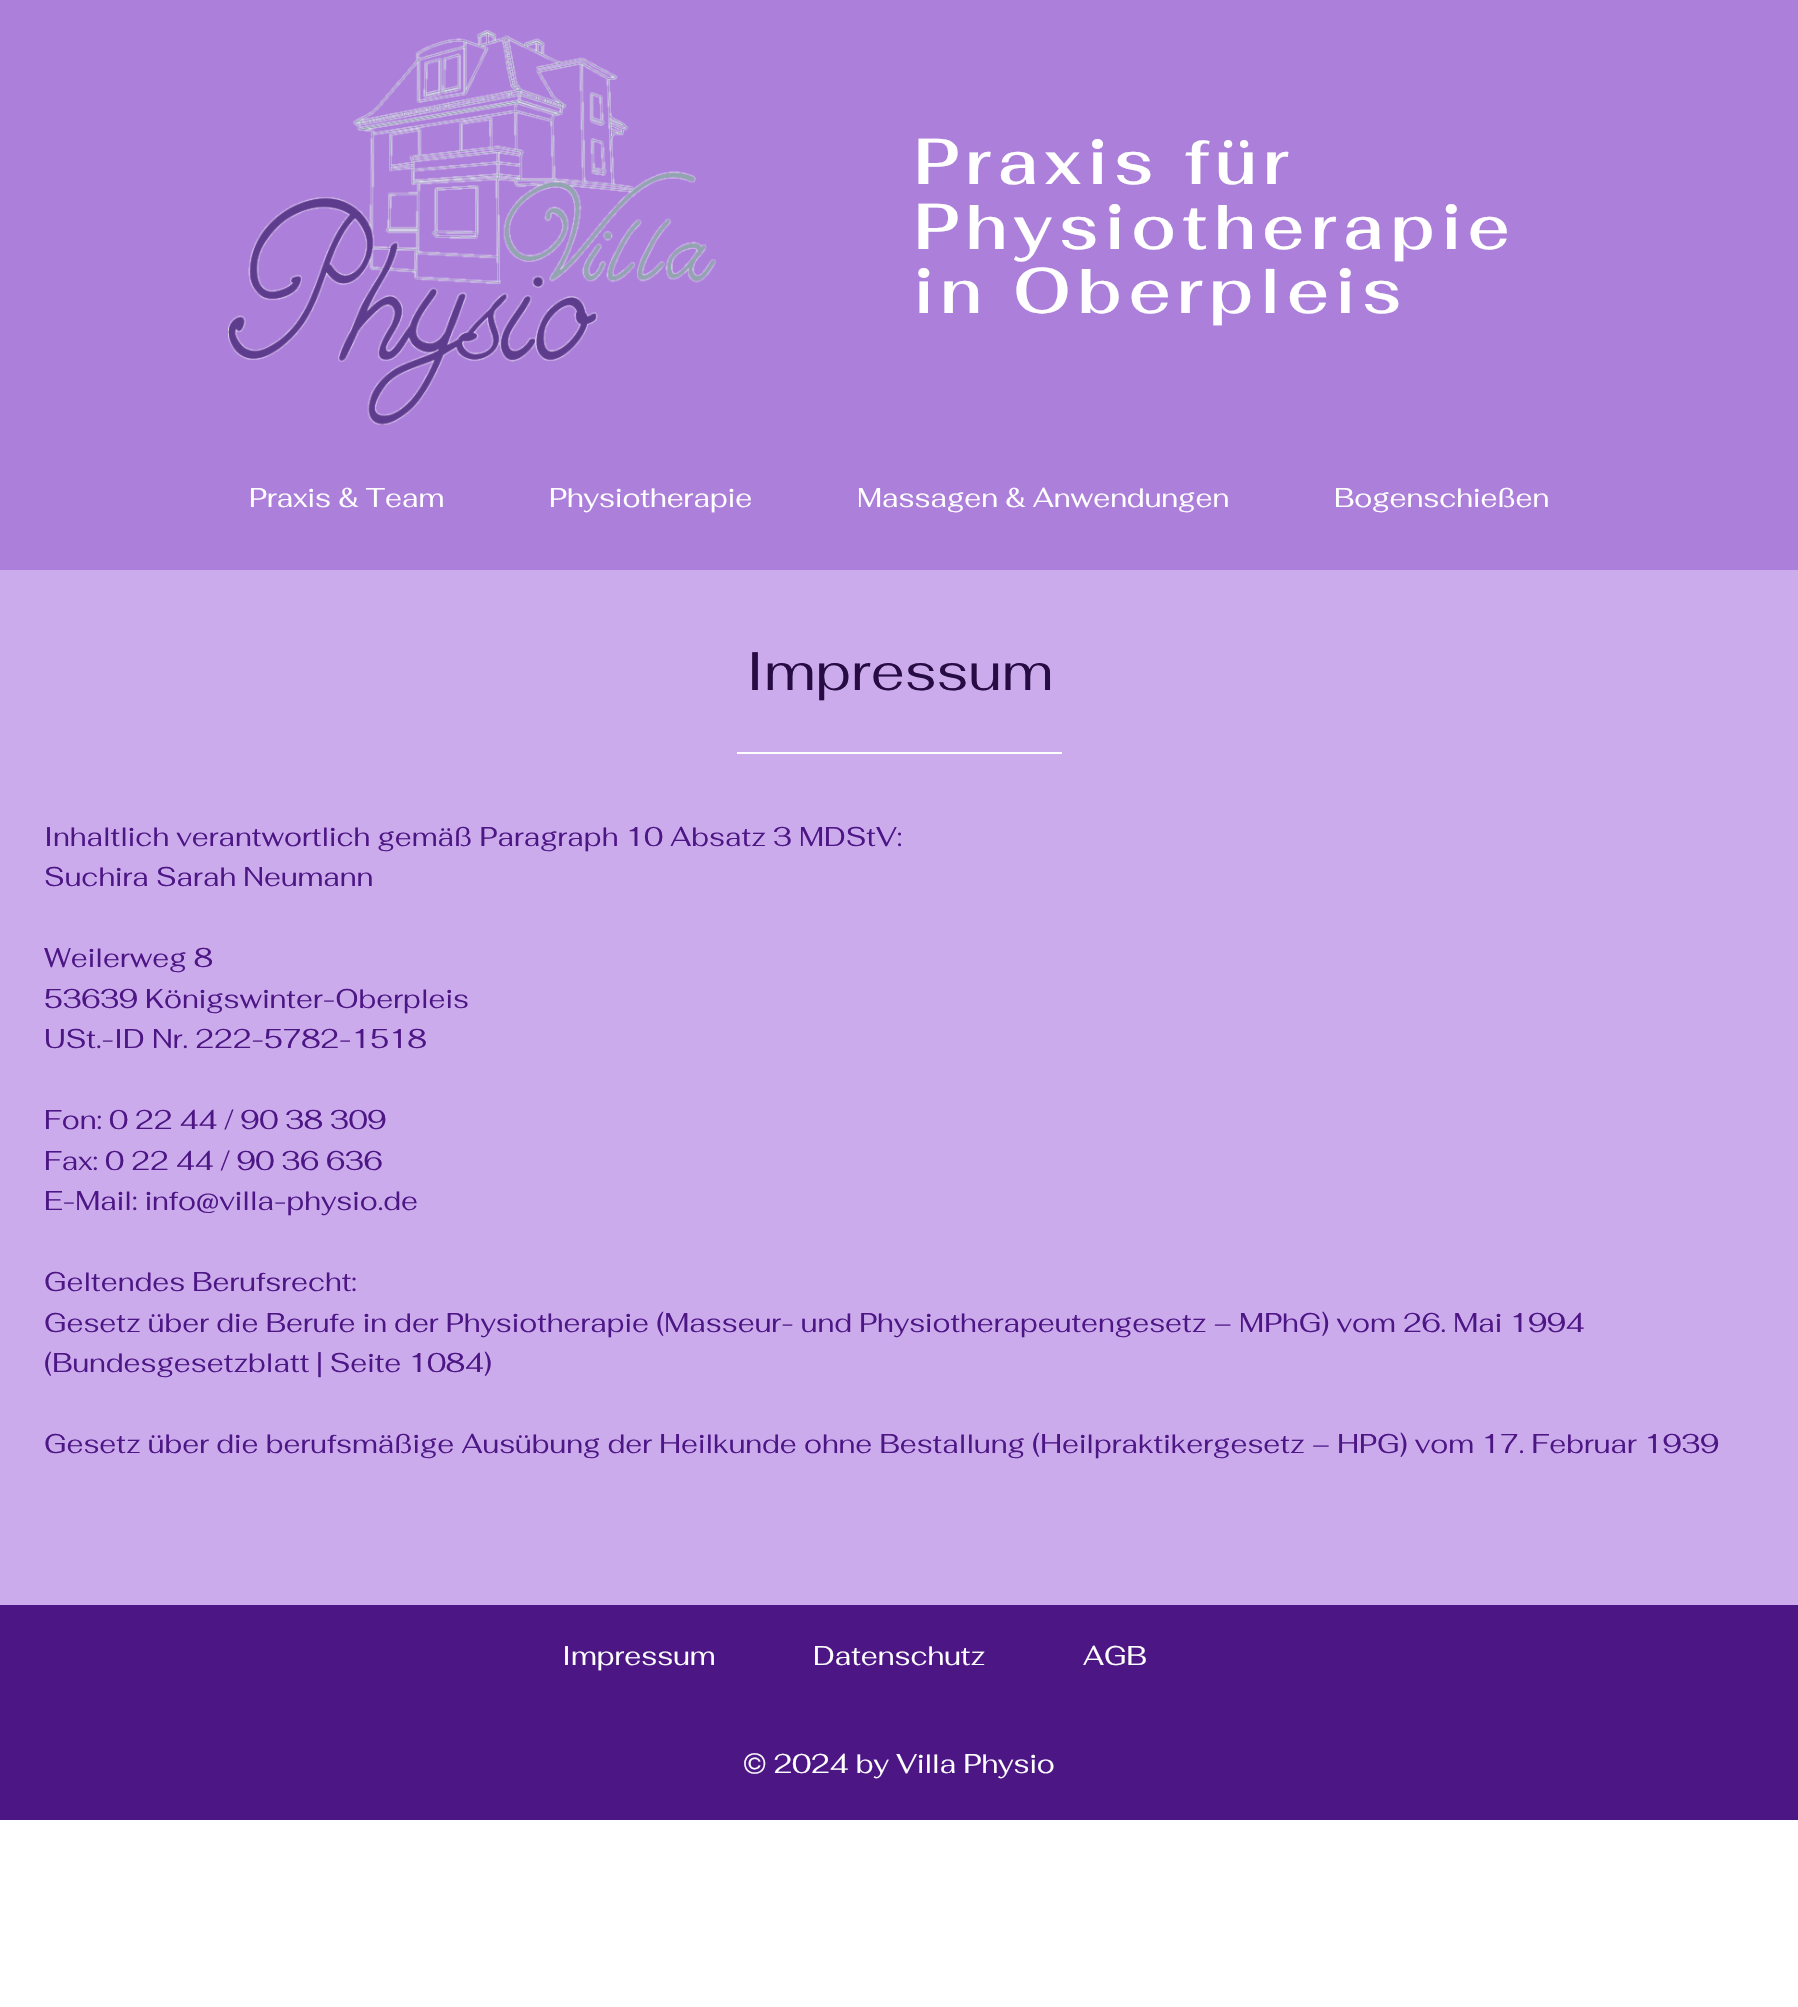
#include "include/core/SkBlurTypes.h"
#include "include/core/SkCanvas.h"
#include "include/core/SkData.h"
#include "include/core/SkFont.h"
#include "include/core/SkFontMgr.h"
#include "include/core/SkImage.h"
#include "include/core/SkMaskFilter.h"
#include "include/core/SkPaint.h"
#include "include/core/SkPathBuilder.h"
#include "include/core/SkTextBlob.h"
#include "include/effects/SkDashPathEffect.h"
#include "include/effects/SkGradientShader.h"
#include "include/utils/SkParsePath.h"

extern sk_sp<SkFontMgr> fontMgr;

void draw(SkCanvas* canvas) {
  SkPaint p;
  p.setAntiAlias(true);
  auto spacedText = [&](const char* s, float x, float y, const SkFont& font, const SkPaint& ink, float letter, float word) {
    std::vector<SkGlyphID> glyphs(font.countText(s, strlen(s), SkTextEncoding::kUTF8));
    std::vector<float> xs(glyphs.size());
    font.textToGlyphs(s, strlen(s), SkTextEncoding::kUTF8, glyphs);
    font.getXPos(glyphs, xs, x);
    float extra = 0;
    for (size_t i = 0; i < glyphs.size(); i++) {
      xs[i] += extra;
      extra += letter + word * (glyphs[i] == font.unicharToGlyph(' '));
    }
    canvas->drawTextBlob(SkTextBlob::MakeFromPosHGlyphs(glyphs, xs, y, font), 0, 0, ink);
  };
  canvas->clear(SK_ColorWHITE);
  p.setColor(SkColorSetRGB(172, 127, 218));
  canvas->drawRect(SkRect::MakeLTRB(0, 0, 1798, 570), p);
  canvas->drawImageRect(SkImages::DeferredFromEncodedData(SkData::MakeFromFileName("images/1.png")), SkRect::MakeLTRB(228, 30, 716, 425), SkSamplingOptions());
  p.setColor(SkColorSetRGB(204, 171, 237));
  canvas->drawRect(SkRect::MakeLTRB(0, 570, 1798, 1605), p);
  p.setColor(SK_ColorWHITE);
  canvas->drawRect(SkRect::MakeLTRB(737, 752, 1062, 754), p);
  p.setColor(SkColorSetRGB(77, 22, 133));
  canvas->drawRect(SkRect::MakeLTRB(0, 1605, 1798, 1820), p);
  SkFont font1(fontMgr->matchFamilyStyle("Fahkwang", SkFontStyle(600, SkFontStyle::kNormal_Width, SkFontStyle::kUpright_Slant)), 64.5f);
  font1.setSubpixel(true);
  p.setColor(SK_ColorWHITE);
  spacedText("Praxis für", 914, 184, font1, p, 6.5f, 0);
  spacedText("Physiotherapie", 914, 249, font1, p, 6.5f, 0);
  spacedText("in Oberpleis", 914, 313, font1, p, 6.5f, 0);
  SkFont font2(fontMgr->matchFamilyStyle("Fahkwang", SkFontStyle::Normal()), 27);
  font2.setSubpixel(true);
  canvas->drawString("Praxis & Team", 249, 507, font2, p);
  canvas->drawString("Physiotherapie", 549, 507, font2, p);
  canvas->drawString("Massagen & Anwendungen", 857, 507, font2, p);
  canvas->drawString("Bogenschießen", 1334, 507, font2, p);
  SkFont font3(fontMgr->matchFamilyStyle("Fahkwang", SkFontStyle::Normal()), 54);
  font3.setSubpixel(true);
  p.setColor(SkColorSetRGB(39, 11, 67));
  canvas->drawString("Impressum", 746, 690, font3, p);
  p.setColor(SkColorSetRGB(77, 22, 133));
  canvas->drawString("Inhaltlich verantwortlich gemäß Paragraph 10 Absatz 3 MDStV:", 44, 846, font2, p);
  canvas->drawString("Suchira Sarah Neumann", 44, 886, font2, p);
  canvas->drawString("Weilerweg 8", 44, 967, font2, p);
  canvas->drawString("53639 Königswinter-Oberpleis", 44, 1008, font2, p);
  canvas->drawString("USt.-ID Nr. 222-5782-1518", 44, 1048, font2, p);
  canvas->drawString("Fon: 0 22 44 / 90 38 309", 44, 1129, font2, p);
  canvas->drawString("Fax: 0 22 44 / 90 36 636", 44, 1170, font2, p);
  canvas->drawString("E-Mail: info@villa-physio.de", 44, 1210, font2, p);
  canvas->drawString("Geltendes Berufsrecht:", 44, 1291, font2, p);
  canvas->drawString("Gesetz über die Berufe in der Physiotherapie (Masseur- und Physiotherapeutengesetz – MPhG) vom 26. Mai 1994", 44, 1332, font2, p);
  canvas->drawString("(Bundesgesetzblatt | Seite 1084)", 44, 1372, font2, p);
  canvas->drawString("Gesetz über die berufsmäßige Ausübung der Heilkunde ohne Bestallung (Heilpraktikergesetz – HPG) vom 17. Februar 1939", 44, 1453, font2, p);
  p.setColor(SK_ColorWHITE);
  canvas->drawString("Impressum", 562, 1665, font2, p);
  canvas->drawString("Datenschutz", 813, 1665, font2, p);
  canvas->drawString("AGB", 1083, 1665, font2, p);
  canvas->drawString("© 2024 by Villa Physio", 743, 1773, font2, p);
}
